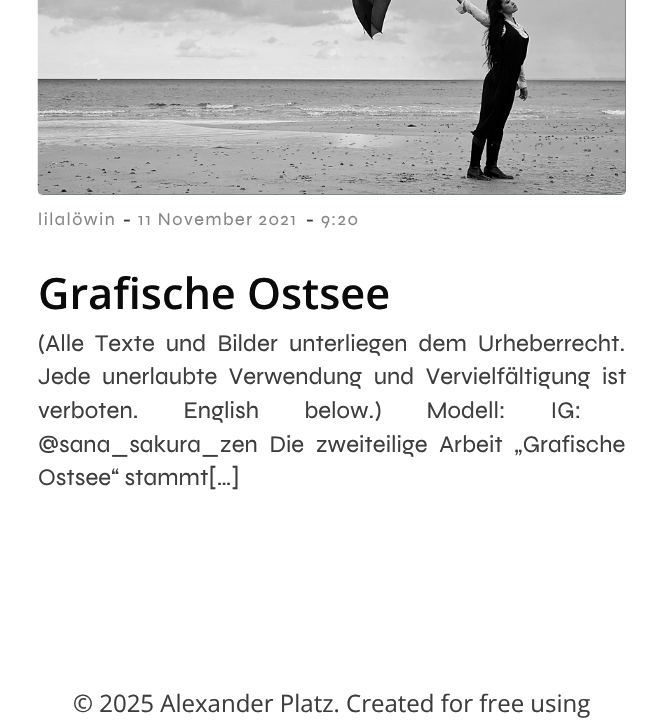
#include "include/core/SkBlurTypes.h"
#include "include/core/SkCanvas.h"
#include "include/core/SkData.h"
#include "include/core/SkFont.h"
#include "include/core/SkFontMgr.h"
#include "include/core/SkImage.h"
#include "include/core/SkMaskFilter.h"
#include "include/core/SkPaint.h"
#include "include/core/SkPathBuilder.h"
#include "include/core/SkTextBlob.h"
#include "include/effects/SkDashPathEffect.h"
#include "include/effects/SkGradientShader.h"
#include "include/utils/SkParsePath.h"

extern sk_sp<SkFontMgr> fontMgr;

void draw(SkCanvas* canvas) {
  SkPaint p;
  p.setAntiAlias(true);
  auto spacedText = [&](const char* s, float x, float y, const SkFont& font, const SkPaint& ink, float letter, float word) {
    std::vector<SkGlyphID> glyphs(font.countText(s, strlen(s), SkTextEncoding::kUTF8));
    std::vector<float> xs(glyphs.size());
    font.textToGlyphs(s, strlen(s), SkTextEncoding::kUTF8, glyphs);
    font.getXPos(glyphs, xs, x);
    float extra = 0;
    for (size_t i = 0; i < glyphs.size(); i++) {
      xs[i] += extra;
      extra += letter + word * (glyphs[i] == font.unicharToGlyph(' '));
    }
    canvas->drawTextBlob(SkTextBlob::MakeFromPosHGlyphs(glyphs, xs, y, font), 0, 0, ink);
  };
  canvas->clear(SK_ColorWHITE);
  p.setColor(SkColorSetRGB(105, 118, 139));
  canvas->drawRoundRect(SkRect::MakeLTRB(38, -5, 626, 195), 5, 5, p);
  canvas->drawImageRect(SkImages::DeferredFromEncodedData(SkData::MakeFromFileName("images/1.png")), SkRect::MakeLTRB(37, 0, 626, 195), SkSamplingOptions());
  SkFont font1(fontMgr->matchFamilyStyle("Syne", SkFontStyle::Normal()), 18);
  font1.setSubpixel(true);
  p.setColor(SkColorSetRGB(133, 133, 133));
  spacedText("lilalöwin", 38, 225, font1, p, 1.5f, 0);
  SkFont font2(fontMgr->matchFamilyStyle("Open Sans", SkFontStyle::Normal()), 24);
  font2.setSubpixel(true);
  p.setColor(SkColorSetRGB(61, 61, 61));
  canvas->drawString("-", 123, 227, font2, p);
  p.setColor(SkColorSetRGB(133, 133, 133));
  spacedText("11 November 2021", 138, 225, font1, p, 1.5f, 0);
  p.setColor(SkColorSetRGB(61, 61, 61));
  canvas->drawString("-", 306, 227, font2, p);
  p.setColor(SkColorSetRGB(133, 133, 133));
  spacedText("9:20", 321, 225, font1, p, 1.5f, 0);
  SkFont font3(fontMgr->matchFamilyStyle("Open Sans", SkFontStyle(600, SkFontStyle::kNormal_Width, SkFontStyle::kUpright_Slant)), 43.25f);
  font3.setSubpixel(true);
  p.setColor(SkColorSetRGB(11, 11, 11));
  canvas->drawString("Grafische Ostsee", 38, 309, font3, p);
  SkFont font4(fontMgr->matchFamilyStyle("Syne", SkFontStyle::Normal()), 24);
  font4.setSubpixel(true);
  p.setColor(SkColorSetRGB(61, 61, 61));
  spacedText("(Alle Texte und Bilder unterliegen dem Urheberrecht.", 38, 351, font4, p, 0, 6);
  spacedText("Jede unerlaubte Verwendung und Vervielfältigung ist", 38, 384, font4, p, 0, 6.5f);
  spacedText("verboten. English below.) Modell: IG:", 38, 418, font4, p, 0, 40);
  spacedText("@sana_sakura_zen Die zweiteilige Arbeit „Grafische", 38, 452, font4, p, 0, 6.5f);
  canvas->drawString("Ostsee“ stammt[…]", 38, 485, font4, p);
  canvas->drawString("© 2025 Alexander Platz. Created for free using", 73, 712, font2, p);
}
